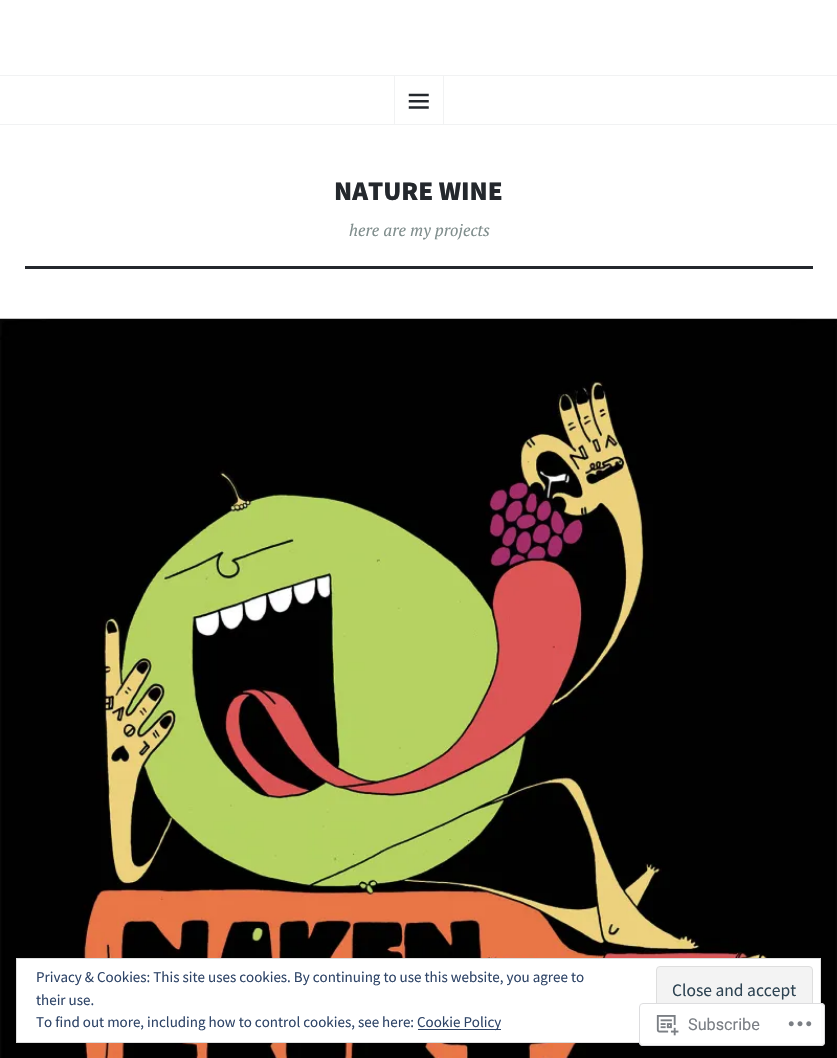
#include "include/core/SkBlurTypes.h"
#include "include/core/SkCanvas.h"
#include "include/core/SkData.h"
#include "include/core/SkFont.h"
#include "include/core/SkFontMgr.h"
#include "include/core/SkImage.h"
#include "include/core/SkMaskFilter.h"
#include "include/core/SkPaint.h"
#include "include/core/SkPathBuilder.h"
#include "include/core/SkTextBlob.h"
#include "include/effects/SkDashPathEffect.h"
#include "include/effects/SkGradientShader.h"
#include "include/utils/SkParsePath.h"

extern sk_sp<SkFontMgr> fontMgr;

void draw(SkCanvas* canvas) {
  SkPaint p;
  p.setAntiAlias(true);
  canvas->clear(SK_ColorWHITE);
  p.setColor(SkColorSetRGB(241, 242, 243));
  canvas->drawRect(SkRect::MakeLTRB(0, 75, 837, 76), p);
  canvas->drawRect(SkRect::MakeLTRB(0, 124, 837, 125), p);
  p.setStyle(SkPaint::kStroke_Style);
  p.setStrokeWidth(1);
  canvas->drawRect(SkRect::MakeLTRB(394.5f, 75.5f, 443.5f, 124.5f), p);
  canvas->drawImageRect(SkImages::DeferredFromEncodedData(SkData::MakeFromFileName("images/1.png")), SkRect::MakeLTRB(408, 93, 429, 109), SkSamplingOptions());
  p.setStyle(SkPaint::kFill_Style);
  p.setColor(SkColorSetRGB(36, 40, 45));
  canvas->drawRect(SkRect::MakeLTRB(25, 266, 813, 269), p);
  canvas->drawImageRect(SkImages::DeferredFromEncodedData(SkData::MakeFromFileName("images/2.png")), SkRect::MakeLTRB(0, 318, 837, 1058), SkSamplingOptions());
  p.setColor(SK_ColorWHITE);
  canvas->drawRect(SkRect::MakeLTRB(16.5f, 958.5f, 820.5f, 1042.5f), p);
  p.setStyle(SkPaint::kStroke_Style);
  p.setColor(SkColorSetRGB(222, 222, 222));
  canvas->drawRect(SkRect::MakeLTRB(16.5f, 958.5f, 820.5f, 1042.5f), p);
  p.setStyle(SkPaint::kFill_Style);
  p.setColor(SkColorSetRGB(243, 243, 243));
  canvas->drawRoundRect(SkRect::MakeLTRB(656.5f, 966.5f, 812.5f, 1014.5f), 3.5f, 3.5f, p);
  p.setStyle(SkPaint::kStroke_Style);
  p.setColor(SkColorSetRGB(222, 222, 222));
  canvas->drawRoundRect(SkRect::MakeLTRB(656.5f, 966.5f, 812.5f, 1014.5f), 3.5f, 3.5f, p);
  p.setStyle(SkPaint::kFill_Style);
  p.setColor(SkColorSetRGB(46, 68, 103));
  canvas->drawRect(SkRect::MakeLTRB(418, 1029, 501, 1030), p);
  p.setColor(SkColorSetARGB(250, 255, 255, 255));
  canvas->drawRoundRect(SkRect::MakeLTRB(639, 1003, 825, 1046), 4, 4, p);
  p.setStyle(SkPaint::kStroke_Style);
  p.setColor(SkColorSetARGB(250, 220, 220, 222));
  canvas->drawRoundRect(SkRect::MakeLTRB(639.5f, 1003.5f, 824.5f, 1045.5f), 3.5f, 3.5f, p);
  canvas->drawImageRect(SkImages::DeferredFromEncodedData(SkData::MakeFromFileName("images/3.png")), SkRect::MakeLTRB(656, 1015, 679, 1036), SkSamplingOptions());
  canvas->drawImageRect(SkImages::DeferredFromEncodedData(SkData::MakeFromFileName("images/4.png")), SkRect::MakeLTRB(788, 1021, 812, 1027), SkSamplingOptions());
  SkFont font1(fontMgr->matchFamilyStyle("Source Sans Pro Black", SkFontStyle(900, SkFontStyle::kNormal_Width, SkFontStyle::kUpright_Slant)), 27);
  font1.setSubpixel(true);
  p.setStyle(SkPaint::kFill_Style);
  p.setColor(SkColorSetRGB(36, 40, 45));
  canvas->drawString("NATURE WINE", 334, 200, font1, p);
  SkFont font2(fontMgr->matchFamilyStyle("PT Serif", SkFontStyle::Italic()), 16.5f);
  font2.setSubpixel(true);
  p.setColor(SkColorSetRGB(127, 141, 140));
  canvas->drawString("here are my projects", 349, 236, font2, p);
  SkFont font3(fontMgr->matchFamilyStyle("Source Sans Pro", SkFontStyle::Normal()), 15);
  font3.setSubpixel(true);
  p.setColor(SkColorSetRGB(46, 68, 103));
  canvas->drawString("Privacy & Cookies: This site uses cookies. By continuing to use this website, you agree to", 36, 982, font3, p);
  canvas->drawString("their use.", 36, 1005, font3, p);
  SkFont font4(fontMgr->matchFamilyStyle("Source Sans Pro", SkFontStyle::Normal()), 17.5f);
  font4.setSubpixel(true);
  p.setColor(SkColorSetRGB(46, 68, 83));
  canvas->drawString("Close and accept", 672, 996, font4, p);
  p.setColor(SkColorSetRGB(46, 68, 103));
  canvas->drawString("To find out more, including how to control cookies, see here:", 36, 1027, font3, p);
  canvas->drawString("Cookie Policy", 417, 1027, font3, p);
  SkFont font5(fontMgr->matchFamilyStyle("Roboto", SkFontStyle::Normal()), 16.25f);
  font5.setSubpixel(true);
  p.setColor(SkColorSetRGB(123, 127, 133));
  canvas->drawString("Subscribe", 688, 1030, font5, p);
}
